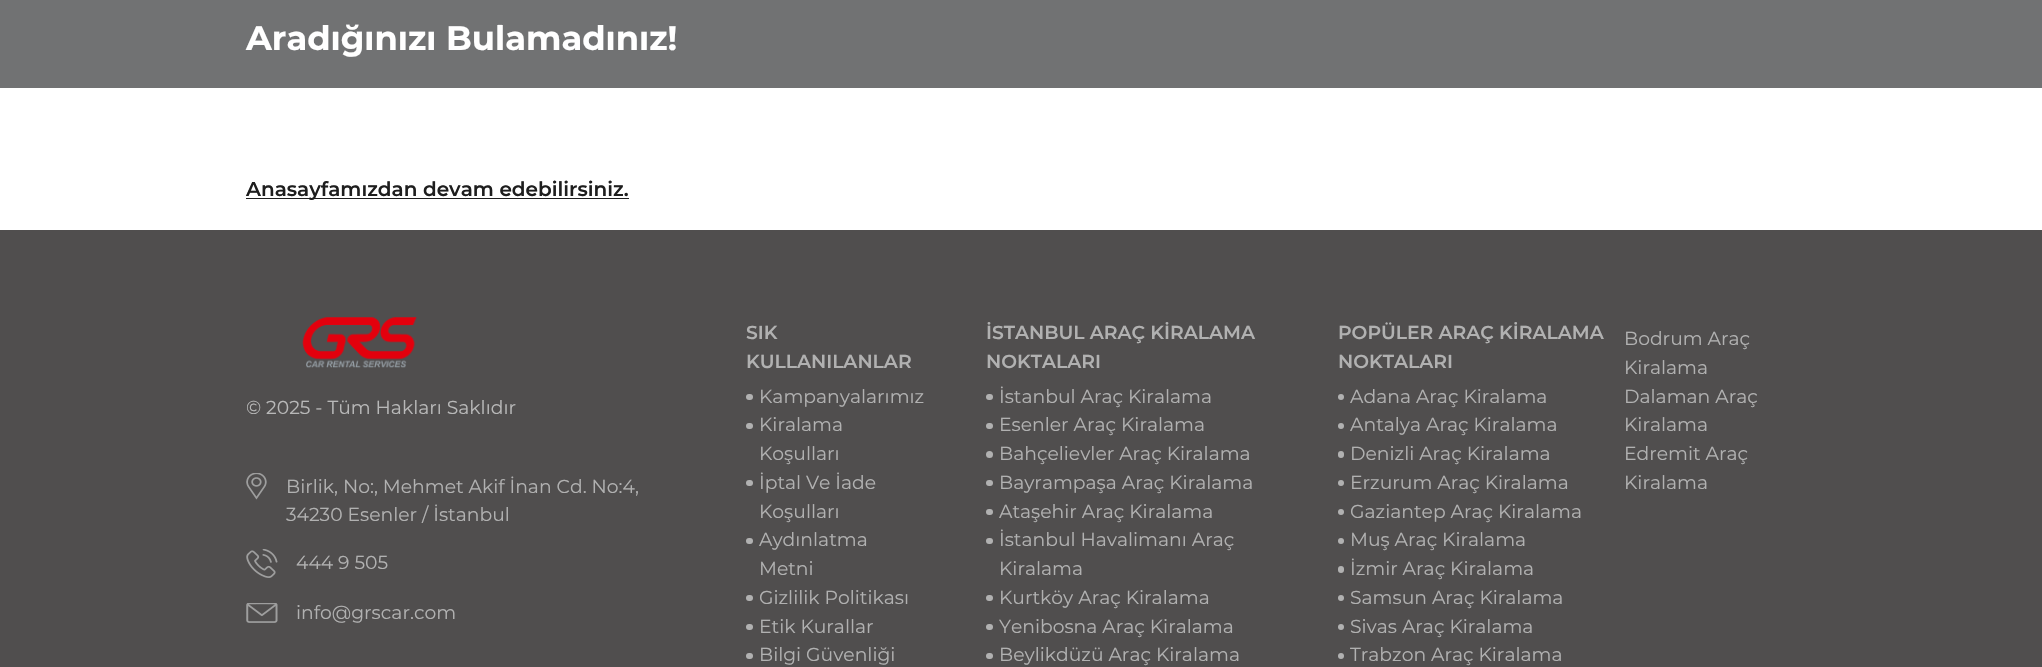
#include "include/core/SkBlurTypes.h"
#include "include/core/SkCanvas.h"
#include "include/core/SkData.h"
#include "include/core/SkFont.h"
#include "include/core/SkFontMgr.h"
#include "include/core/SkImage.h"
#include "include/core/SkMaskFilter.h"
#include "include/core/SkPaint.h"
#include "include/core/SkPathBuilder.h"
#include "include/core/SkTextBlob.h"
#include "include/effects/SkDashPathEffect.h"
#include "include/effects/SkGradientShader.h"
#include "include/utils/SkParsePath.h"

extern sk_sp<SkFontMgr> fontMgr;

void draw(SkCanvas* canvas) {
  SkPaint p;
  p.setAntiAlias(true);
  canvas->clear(SK_ColorWHITE);
  p.setColor(SkColorSetRGB(113, 114, 115));
  canvas->drawRect(SkRect::MakeLTRB(0, 0, 2042, 88), p);
  p.setColor(SkColorSetRGB(30, 30, 30));
  canvas->drawRect(SkRect::MakeLTRB(246, 198, 629, 199), p);
  p.setColor(SkColorSetRGB(80, 78, 78));
  canvas->drawRect(SkRect::MakeLTRB(0, 230, 2042, 667), p);
  canvas->drawImageRect(SkImages::DeferredFromEncodedData(SkData::MakeFromFileName("images/1.png")), SkRect::MakeLTRB(302, 317, 417, 368), SkSamplingOptions());
  canvas->drawImageRect(SkImages::DeferredFromEncodedData(SkData::MakeFromFileName("images/2.png")), SkRect::MakeLTRB(246, 473, 267, 500), SkSamplingOptions());
  canvas->drawImageRect(SkImages::DeferredFromEncodedData(SkData::MakeFromFileName("images/3.png")), SkRect::MakeLTRB(246, 549, 278, 578), SkSamplingOptions());
  canvas->drawImageRect(SkImages::DeferredFromEncodedData(SkData::MakeFromFileName("images/4.png")), SkRect::MakeLTRB(246, 603, 278, 623), SkSamplingOptions());
  p.setColor(SkColorSetRGB(177, 177, 177));
  canvas->drawRoundRect(SkRect::MakeLTRB(746, 394, 753, 400), 3, 3, p);
  canvas->drawRoundRect(SkRect::MakeLTRB(746, 423, 753, 429), 3, 3, p);
  canvas->drawRoundRect(SkRect::MakeLTRB(746, 480, 753, 486), 3, 3, p);
  canvas->drawRoundRect(SkRect::MakeLTRB(746, 538, 753, 544), 3, 3, p);
  canvas->drawRoundRect(SkRect::MakeLTRB(746, 595, 753, 601), 3, 3, p);
  canvas->drawRoundRect(SkRect::MakeLTRB(746, 624, 753, 630), 3, 3, p);
  canvas->drawRoundRect(SkRect::MakeLTRB(746, 653, 753, 659), 3, 3, p);
  canvas->drawRoundRect(SkRect::MakeLTRB(986, 394, 993, 400), 3, 3, p);
  canvas->drawRoundRect(SkRect::MakeLTRB(986, 423, 993, 429), 3, 3, p);
  canvas->drawCircle(989.5f, 454.5f, 3.5f, p);
  canvas->drawRoundRect(SkRect::MakeLTRB(986, 480, 993, 486), 3, 3, p);
  canvas->drawRoundRect(SkRect::MakeLTRB(986, 509, 993, 515), 3, 3, p);
  canvas->drawRoundRect(SkRect::MakeLTRB(986, 538, 993, 544), 3, 3, p);
  canvas->drawRoundRect(SkRect::MakeLTRB(986, 595, 993, 601), 3, 3, p);
  canvas->drawRoundRect(SkRect::MakeLTRB(986, 624, 993, 630), 3, 3, p);
  canvas->drawRoundRect(SkRect::MakeLTRB(986, 653, 993, 659), 3, 3, p);
  canvas->drawCircle(1341, 397, 3, p);
  canvas->drawCircle(1341, 426, 3, p);
  canvas->drawRoundRect(SkRect::MakeLTRB(1338, 451, 1344, 458), 3, 3, p);
  canvas->drawCircle(1341, 483, 3, p);
  canvas->drawCircle(1341, 512, 3, p);
  canvas->drawCircle(1341, 541, 3, p);
  canvas->drawRoundRect(SkRect::MakeLTRB(1338, 566, 1344, 573), 3, 3, p);
  canvas->drawCircle(1341, 598, 3, p);
  canvas->drawCircle(1341, 627, 3, p);
  canvas->drawCircle(1341, 656, 3, p);
  SkFont font1(fontMgr->matchFamilyStyle("Montserrat", SkFontStyle::Bold()), 33.75f);
  font1.setSubpixel(true);
  p.setColor(SK_ColorWHITE);
  canvas->drawString("Aradığınızı Bulamadınız!", 246, 50, font1, p);
  SkFont font2(fontMgr->matchFamilyStyle("Montserrat", SkFontStyle(600, SkFontStyle::kNormal_Width, SkFontStyle::kUpright_Slant)), 20);
  font2.setSubpixel(true);
  p.setColor(SkColorSetRGB(30, 30, 30));
  canvas->drawString("Anasayfamızdan devam edebilirsiniz.", 246, 196, font2, p);
  SkFont font3(fontMgr->matchFamilyStyle("Montserrat", SkFontStyle::Normal()), 18.75f);
  font3.setSubpixel(true);
  p.setColor(SkColorSetRGB(184, 184, 184));
  canvas->drawString("© 2025 - Tüm Hakları Saklıdır", 246, 414, font3, p);
  p.setColor(SkColorSetRGB(177, 177, 177));
  canvas->drawString("Birlik, No:, Mehmet Akif İnan Cd. No:4,", 286, 493, font3, p);
  canvas->drawString("34230 Esenler / İstanbul", 286, 521, font3, p);
  canvas->drawString("444 9 505", 296, 569, font3, p);
  canvas->drawString("info@grscar.com", 296, 619, font3, p);
  SkFont font4(fontMgr->matchFamilyStyle("Montserrat", SkFontStyle(600, SkFontStyle::kNormal_Width, SkFontStyle::kUpright_Slant)), 18.75f);
  font4.setSubpixel(true);
  canvas->drawString("SIK", 746, 339, font4, p);
  canvas->drawString("KULLANILANLAR", 746, 368, font4, p);
  canvas->drawString("Kampanyalarımız", 759, 403, font3, p);
  canvas->drawString("Kiralama", 759, 431, font3, p);
  canvas->drawString("Koşulları", 759, 460, font3, p);
  canvas->drawString("İptal Ve İade", 759, 489, font3, p);
  canvas->drawString("Koşulları", 759, 518, font3, p);
  canvas->drawString("Aydınlatma", 759, 546, font3, p);
  canvas->drawString("Metni", 759, 575, font3, p);
  canvas->drawString("Gizlilik Politikası", 759, 604, font3, p);
  canvas->drawString("Etik Kurallar", 759, 633, font3, p);
  canvas->drawString("Bilgi Güvenliği", 759, 661, font3, p);
  canvas->drawString("İSTANBUL ARAÇ KİRALAMA", 986, 339, font4, p);
  canvas->drawString("NOKTALARI", 986, 368, font4, p);
  canvas->drawString("İstanbul Araç Kiralama", 999, 403, font3, p);
  canvas->drawString("Esenler Araç Kiralama", 999, 431, font3, p);
  canvas->drawString("Bahçelievler Araç Kiralama", 999, 460, font3, p);
  canvas->drawString("Bayrampaşa Araç Kiralama", 999, 489, font3, p);
  canvas->drawString("Ataşehir Araç Kiralama", 999, 518, font3, p);
  canvas->drawString("İstanbul Havalimanı Araç", 999, 546, font3, p);
  canvas->drawString("Kiralama", 999, 575, font3, p);
  canvas->drawString("Kurtköy Araç Kiralama", 999, 604, font3, p);
  canvas->drawString("Yenibosna Araç Kiralama", 999, 633, font3, p);
  canvas->drawString("Beylikdüzü Araç Kiralama", 999, 661, font3, p);
  canvas->drawString("POPÜLER ARAÇ KİRALAMA", 1338, 339, font4, p);
  canvas->drawString("NOKTALARI", 1338, 368, font4, p);
  canvas->drawString("Adana Araç Kiralama", 1350, 403, font3, p);
  canvas->drawString("Antalya Araç Kiralama", 1350, 431, font3, p);
  canvas->drawString("Denizli Araç Kiralama", 1350, 460, font3, p);
  canvas->drawString("Erzurum Araç Kiralama", 1350, 489, font3, p);
  canvas->drawString("Gaziantep Araç Kiralama", 1350, 518, font3, p);
  canvas->drawString("Muş Araç Kiralama", 1350, 546, font3, p);
  canvas->drawString("İzmir Araç Kiralama", 1350, 575, font3, p);
  canvas->drawString("Samsun Araç Kiralama", 1350, 604, font3, p);
  canvas->drawString("Sivas Araç Kiralama", 1350, 633, font3, p);
  canvas->drawString("Trabzon Araç Kiralama", 1350, 661, font3, p);
  canvas->drawString("Bodrum Araç", 1624, 345, font3, p);
  canvas->drawString("Kiralama", 1624, 374, font3, p);
  canvas->drawString("Dalaman Araç", 1624, 403, font3, p);
  canvas->drawString("Kiralama", 1624, 431, font3, p);
  canvas->drawString("Edremit Araç", 1624, 460, font3, p);
  canvas->drawString("Kiralama", 1624, 489, font3, p);
}
